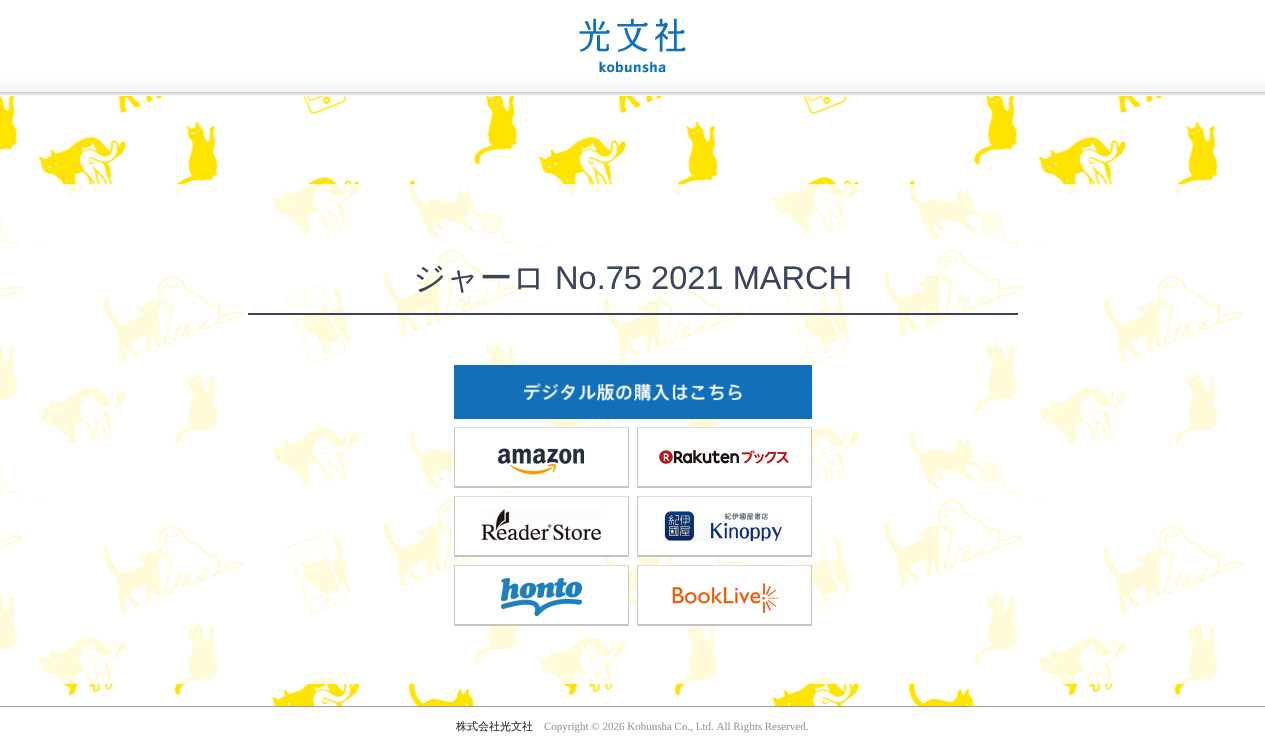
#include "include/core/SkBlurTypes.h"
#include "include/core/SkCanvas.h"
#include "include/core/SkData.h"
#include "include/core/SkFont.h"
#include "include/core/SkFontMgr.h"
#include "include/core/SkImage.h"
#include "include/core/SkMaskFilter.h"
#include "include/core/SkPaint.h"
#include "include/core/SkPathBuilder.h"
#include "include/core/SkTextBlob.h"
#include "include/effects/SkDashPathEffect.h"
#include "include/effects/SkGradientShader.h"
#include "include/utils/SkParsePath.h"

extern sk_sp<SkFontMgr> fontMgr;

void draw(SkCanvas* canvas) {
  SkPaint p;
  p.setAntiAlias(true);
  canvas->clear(SK_ColorWHITE);
  canvas->drawImageRect(SkImages::DeferredFromEncodedData(SkData::MakeFromFileName("images/1.png")), SkRect::MakeLTRB(0, 96, 1244, 706), SkSamplingOptions());
  canvas->drawImageRect(SkImages::DeferredFromEncodedData(SkData::MakeFromFileName("images/2.png")), SkRect::MakeLTRB(0, 0, 1265, 96), SkSamplingOptions());
  canvas->drawImageRect(SkImages::DeferredFromEncodedData(SkData::MakeFromFileName("images/3.png")), SkRect::MakeLTRB(579, 18, 686, 73), SkSamplingOptions());
  p.setColor(SkColorSetARGB(217, 255, 255, 255));
  canvas->drawRect(SkRect::MakeLTRB(0, 184, 1244, 684), p);
  p.setColor(SkColorSetRGB(58, 68, 92));
  canvas->drawRect(SkRect::MakeLTRB(248, 313, 1018, 315), p);
  p.setColor(SkColorSetRGB(18, 112, 186));
  canvas->drawRect(SkRect::MakeLTRB(454, 365, 812, 419), p);
  canvas->drawImageRect(SkImages::DeferredFromEncodedData(SkData::MakeFromFileName("images/4.png")), SkRect::MakeLTRB(524, 383, 742, 401), SkSamplingOptions());
  p.setColor(SK_ColorWHITE);
  canvas->drawRect(SkRect::MakeLTRB(455, 428, 613, 486), p);
  p.setColor(SkColorSetRGB(221, 221, 221));
  canvas->drawRect(SkRect::MakeLTRB(454, 427, 629, 428), p);
  p.setColor(SkColorSetRGB(200, 200, 200));
  canvas->drawPath(SkPathBuilder().moveTo(629, 427).lineTo(629, 488).lineTo(628, 486).lineTo(628, 428).close().detach(), p);
  p.setColor(SkColorSetRGB(195, 195, 195));
  canvas->drawPath(SkPathBuilder().moveTo(629, 488).lineTo(454, 488).lineTo(455, 486).lineTo(628, 486).close().detach(), p);
  p.setColor(SkColorSetRGB(200, 200, 200));
  canvas->drawPath(SkPathBuilder().moveTo(454, 488).lineTo(454, 427).lineTo(455, 428).lineTo(455, 486).close().detach(), p);
  canvas->drawImageRect(SkImages::DeferredFromEncodedData(SkData::MakeFromFileName("images/5.png")), SkRect::MakeLTRB(498, 448, 584, 475), SkSamplingOptions());
  p.setColor(SK_ColorWHITE);
  canvas->drawRect(SkRect::MakeLTRB(674, 428, 811, 486), p);
  p.setColor(SkColorSetRGB(221, 221, 221));
  canvas->drawRect(SkRect::MakeLTRB(637, 427, 812, 428), p);
  p.setColor(SkColorSetRGB(200, 200, 200));
  canvas->drawPath(SkPathBuilder().moveTo(812, 427).lineTo(812, 488).lineTo(811, 486).lineTo(811, 428).close().detach(), p);
  p.setColor(SkColorSetRGB(195, 195, 195));
  canvas->drawPath(SkPathBuilder().moveTo(812, 488).lineTo(637, 488).lineTo(638, 486).lineTo(811, 486).close().detach(), p);
  p.setColor(SkColorSetRGB(200, 200, 200));
  canvas->drawPath(SkPathBuilder().moveTo(637, 488).lineTo(637, 427).lineTo(638, 428).lineTo(638, 486).close().detach(), p);
  canvas->drawImageRect(SkImages::DeferredFromEncodedData(SkData::MakeFromFileName("images/6.png")), SkRect::MakeLTRB(659, 450, 789, 464), SkSamplingOptions());
  p.setColor(SK_ColorWHITE);
  canvas->drawRect(SkRect::MakeLTRB(455, 497, 610, 555), p);
  p.setColor(SkColorSetRGB(221, 221, 221));
  canvas->drawRect(SkRect::MakeLTRB(454, 496, 629, 497), p);
  p.setColor(SkColorSetRGB(200, 200, 200));
  canvas->drawPath(SkPathBuilder().moveTo(629, 496).lineTo(629, 557).lineTo(628, 555).lineTo(628, 497).close().detach(), p);
  p.setColor(SkColorSetRGB(195, 195, 195));
  canvas->drawPath(SkPathBuilder().moveTo(629, 557).lineTo(454, 557).lineTo(455, 555).lineTo(628, 555).close().detach(), p);
  p.setColor(SkColorSetRGB(200, 200, 200));
  canvas->drawPath(SkPathBuilder().moveTo(454, 557).lineTo(454, 496).lineTo(455, 497).lineTo(455, 555).close().detach(), p);
  canvas->drawImageRect(SkImages::DeferredFromEncodedData(SkData::MakeFromFileName("images/7.png")), SkRect::MakeLTRB(481, 509, 601, 540), SkSamplingOptions());
  p.setColor(SK_ColorWHITE);
  canvas->drawRect(SkRect::MakeLTRB(644, 525, 811, 555), p);
  p.setColor(SkColorSetRGB(221, 221, 221));
  canvas->drawRect(SkRect::MakeLTRB(637, 496, 812, 497), p);
  p.setColor(SkColorSetRGB(200, 200, 200));
  canvas->drawPath(SkPathBuilder().moveTo(812, 496).lineTo(812, 557).lineTo(811, 555).lineTo(811, 497).close().detach(), p);
  p.setColor(SkColorSetRGB(195, 195, 195));
  canvas->drawPath(SkPathBuilder().moveTo(812, 557).lineTo(637, 557).lineTo(638, 555).lineTo(811, 555).close().detach(), p);
  p.setColor(SkColorSetRGB(200, 200, 200));
  canvas->drawPath(SkPathBuilder().moveTo(637, 557).lineTo(637, 496).lineTo(638, 497).lineTo(638, 555).close().detach(), p);
  canvas->drawImageRect(SkImages::DeferredFromEncodedData(SkData::MakeFromFileName("images/8.png")), SkRect::MakeLTRB(664, 511, 782, 541), SkSamplingOptions());
  p.setColor(SK_ColorWHITE);
  canvas->drawRect(SkRect::MakeLTRB(485, 566, 628, 624), p);
  p.setColor(SkColorSetRGB(221, 221, 221));
  canvas->drawRect(SkRect::MakeLTRB(454, 565, 629, 566), p);
  p.setColor(SkColorSetRGB(200, 200, 200));
  canvas->drawPath(SkPathBuilder().moveTo(629, 565).lineTo(629, 626).lineTo(628, 624).lineTo(628, 566).close().detach(), p);
  p.setColor(SkColorSetRGB(195, 195, 195));
  canvas->drawPath(SkPathBuilder().moveTo(629, 626).lineTo(454, 626).lineTo(455, 624).lineTo(628, 624).close().detach(), p);
  p.setColor(SkColorSetRGB(200, 200, 200));
  canvas->drawPath(SkPathBuilder().moveTo(454, 626).lineTo(454, 565).lineTo(455, 566).lineTo(455, 624).close().detach(), p);
  canvas->drawImageRect(SkImages::DeferredFromEncodedData(SkData::MakeFromFileName("images/9.png")), SkRect::MakeLTRB(501, 578, 582, 616), SkSamplingOptions());
  p.setColor(SK_ColorWHITE);
  canvas->drawRect(SkRect::MakeLTRB(638, 566, 811, 624), p);
  p.setColor(SkColorSetRGB(221, 221, 221));
  canvas->drawRect(SkRect::MakeLTRB(637, 565, 812, 566), p);
  p.setColor(SkColorSetRGB(200, 200, 200));
  canvas->drawPath(SkPathBuilder().moveTo(812, 565).lineTo(812, 626).lineTo(811, 624).lineTo(811, 566).close().detach(), p);
  p.setColor(SkColorSetRGB(195, 195, 195));
  canvas->drawPath(SkPathBuilder().moveTo(812, 626).lineTo(637, 626).lineTo(638, 624).lineTo(811, 624).close().detach(), p);
  p.setColor(SkColorSetRGB(200, 200, 200));
  canvas->drawPath(SkPathBuilder().moveTo(637, 626).lineTo(637, 565).lineTo(638, 566).lineTo(638, 624).close().detach(), p);
  canvas->drawImageRect(SkImages::DeferredFromEncodedData(SkData::MakeFromFileName("images/10.png")), SkRect::MakeLTRB(672, 583, 779, 613), SkSamplingOptions());
  p.setColor(SkColorSetRGB(153, 153, 153));
  canvas->drawRect(SkRect::MakeLTRB(0, 706, 1265, 707), p);
  SkFont font1(fontMgr->matchFamilyStyle("WenQuanYi Zen Hei", SkFontStyle(500, SkFontStyle::kNormal_Width, SkFontStyle::kUpright_Slant)), 32.6f);
  font1.setSubpixel(true);
  p.setColor(SkColorSetRGB(58, 68, 92));
  canvas->drawString("ジャーロ", 413, 289, font1, p);
  SkFont font2(fontMgr->matchFamilyStyle("Liberation Sans", SkFontStyle::Normal()), 32.6f);
  font2.setSubpixel(true);
  canvas->drawString("No.75 2021 MARCH", 555, 289, font2, p);
  SkFont font3(fontMgr->matchFamilyStyle("WenQuanYi Zen Hei", SkFontStyle(500, SkFontStyle::kNormal_Width, SkFontStyle::kUpright_Slant)), 11);
  font3.setSubpixel(true);
  p.setColor(SkColorSetRGB(51, 51, 51));
  canvas->drawString("株式会社光文社", 456, 730, font3, p);
  SkFont font4(fontMgr->matchFamilyStyle("Liberation Serif", SkFontStyle::Normal()), 11);
  font4.setSubpixel(true);
  p.setColor(SkColorSetRGB(153, 153, 153));
  canvas->drawString("Copyright © 2026 Kobunsha Co., Ltd. All Rights Reserved.", 544, 730, font4, p);
}
